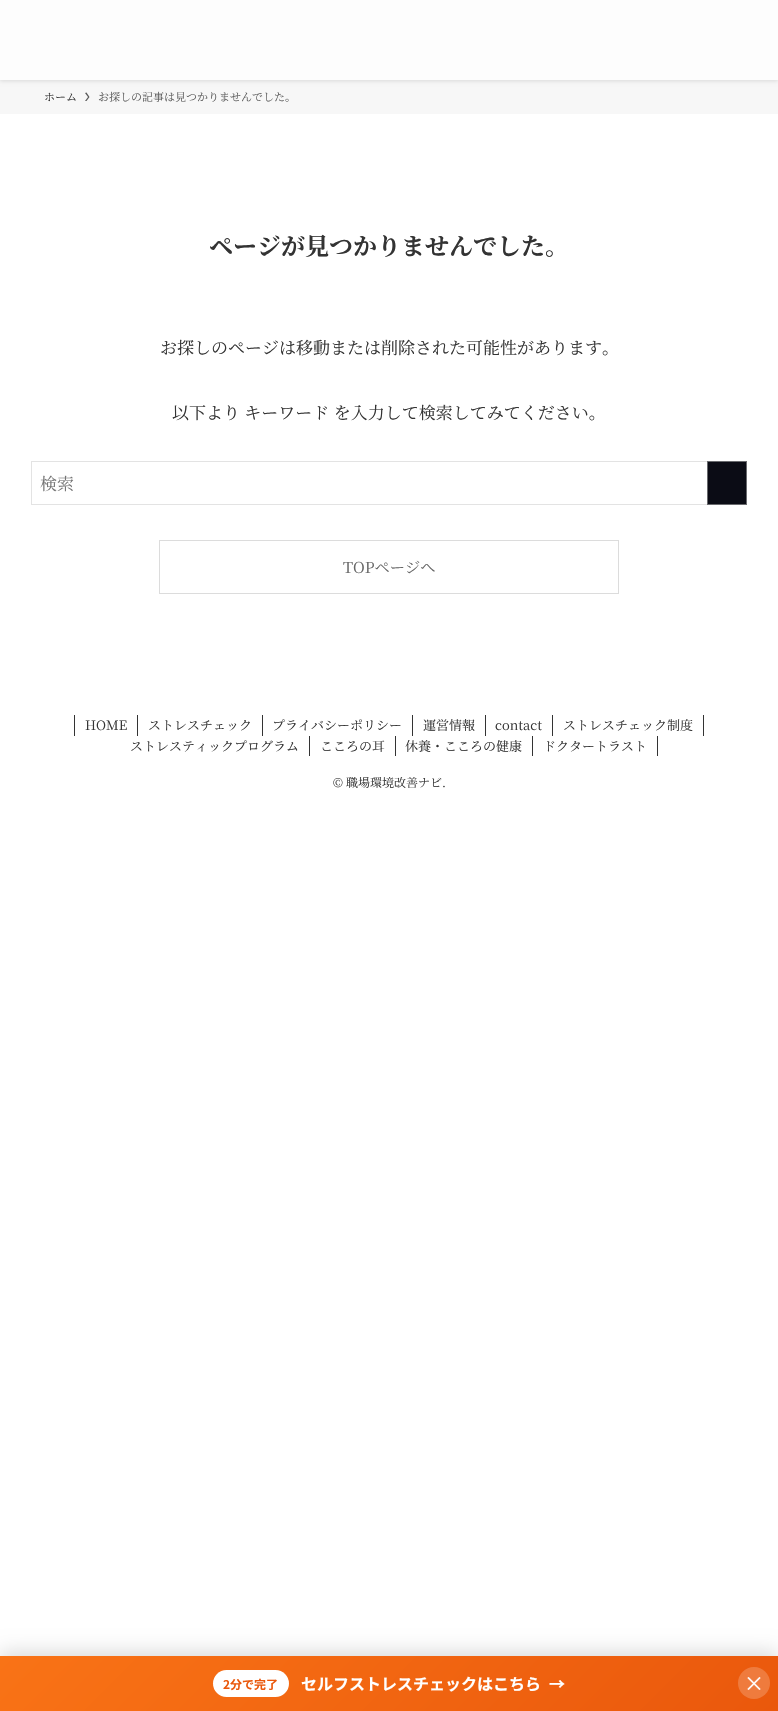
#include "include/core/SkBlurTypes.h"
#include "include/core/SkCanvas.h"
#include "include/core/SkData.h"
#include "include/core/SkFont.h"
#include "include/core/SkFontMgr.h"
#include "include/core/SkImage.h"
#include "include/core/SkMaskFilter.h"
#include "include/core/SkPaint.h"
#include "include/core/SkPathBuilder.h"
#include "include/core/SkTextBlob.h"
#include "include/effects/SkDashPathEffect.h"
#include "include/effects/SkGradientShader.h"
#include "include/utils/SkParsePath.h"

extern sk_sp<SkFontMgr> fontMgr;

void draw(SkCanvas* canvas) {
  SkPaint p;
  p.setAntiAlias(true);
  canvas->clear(SK_ColorWHITE);
  p.setColor(SkColorSetRGB(247, 247, 247));
  canvas->drawRect(SkRect::MakeLTRB(0, 80, 778, 114), p);
  p.setColor(SkColorSetARGB(31, 0, 0, 0));
  p.setMaskFilter(SkMaskFilter::MakeBlur(kNormal_SkBlurStyle, 2));
  canvas->drawRect(SkRect::MakeLTRB(0, 1, 778, 81), p);
  p.setMaskFilter(nullptr);
  p.setColor(SkColorSetRGB(253, 253, 253));
  canvas->drawRect(SkRect::MakeLTRB(0, 0, 778, 80), p);
  p.setColor(SkColorSetRGB(90, 90, 90));
  canvas->drawPath(SkPathBuilder().moveTo(86.5f, 92.5f).lineTo(85, 93).lineTo(88, 97).lineTo(85, 101).lineTo(86.5f, 101).lineTo(89.5f, 97).close().detach(), p);
  p.setStyle(SkPaint::kStroke_Style);
  p.setStrokeWidth(1);
  p.setColor(SkColorSetRGB(227, 227, 227));
  canvas->drawRect(SkRect::MakeLTRB(31.5f, 461.5f, 746.5f, 504.5f), p);
  p.setStyle(SkPaint::kFill_Style);
  p.setColor(SkColorSetRGB(11, 12, 21));
  canvas->drawRect(SkRect::MakeLTRB(707.5f, 461.5f, 746.5f, 504.5f), p);
  p.setStyle(SkPaint::kStroke_Style);
  p.setColor(SkColorSetRGB(105, 106, 110));
  canvas->drawRect(SkRect::MakeLTRB(707.5f, 461.5f, 746.5f, 504.5f), p);
  p.setColor(SkColorSetRGB(220, 220, 220));
  canvas->drawRect(SkRect::MakeLTRB(159.5f, 540.5f, 618.5f, 593.5f), p);
  p.setStyle(SkPaint::kFill_Style);
  p.setColor(SkColorSetRGB(51, 51, 51));
  canvas->drawRect(SkRect::MakeLTRB(137, 715, 138, 736), p);
  canvas->drawRect(SkRect::MakeLTRB(74, 715, 75, 736), p);
  canvas->drawRect(SkRect::MakeLTRB(262, 715, 263, 736), p);
  canvas->drawRect(SkRect::MakeLTRB(412, 715, 413, 736), p);
  canvas->drawRect(SkRect::MakeLTRB(485, 715, 486, 736), p);
  canvas->drawRect(SkRect::MakeLTRB(552, 715, 553, 736), p);
  canvas->drawRect(SkRect::MakeLTRB(703, 715, 704, 736), p);
  canvas->drawRect(SkRect::MakeLTRB(309, 736, 310, 756), p);
  canvas->drawRect(SkRect::MakeLTRB(395, 736, 396, 756), p);
  canvas->drawRect(SkRect::MakeLTRB(532, 736, 533, 756), p);
  canvas->drawRect(SkRect::MakeLTRB(657, 736, 658, 756), p);
  p.setColor(SkColorSetARGB(38, 0, 0, 0));
  p.setMaskFilter(SkMaskFilter::MakeBlur(kNormal_SkBlurStyle, 10));
  canvas->drawRect(SkRect::MakeLTRB(0, 1652, 778, 1707), p);
  p.setMaskFilter(nullptr);
  {
    const SkColor colors[] = {SkColorSetRGB(249, 115, 22), SkColorSetRGB(234, 88, 12)};
    const float stops[] = {0, 1};
    const SkPoint ends[] = {{181, 1475}, {597, 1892}};
    p.setShader(SkGradientShader::MakeLinear(ends, colors, stops, 2, SkTileMode::kClamp));
    p.setAlpha(255);
  }
  canvas->drawRect(SkRect::MakeLTRB(0, 1656, 778, 1711), p);
  p.setShader(nullptr);
  p.setColor(SK_ColorWHITE);
  canvas->drawRoundRect(SkRect::MakeLTRB(213, 1670, 289, 1697), 13.5f, 13.5f, p);
  p.setColor(SkColorSetRGB(239, 123, 61));
  canvas->drawCircle(754, 1683, 16, p);
  SkFont font1(fontMgr->matchFamilyStyle("Noto Serif JP", SkFontStyle::Normal()), 11);
  font1.setSubpixel(true);
  p.setColor(SkColorSetRGB(51, 51, 51));
  canvas->drawString("ホーム", 44, 101, font1, p);
  p.setColor(SkColorSetRGB(90, 90, 90));
  canvas->drawString("お探しの記事は見つかりませんでした。", 98, 101, font1, p);
  SkFont font2(fontMgr->matchFamilyStyle("Noto Serif JP", SkFontStyle::Bold()), 24);
  font2.setSubpixel(true);
  p.setColor(SkColorSetRGB(51, 51, 51));
  canvas->drawString("ページが見つかりませんでした。", 209, 255, font2, p);
  SkFont font3(fontMgr->matchFamilyStyle("Noto Serif JP", SkFontStyle::Normal()), 17);
  font3.setSubpixel(true);
  canvas->drawString("お探しのページは移動または削除された可能性があります。", 160, 354, font3, p);
  canvas->drawString("以下より キーワード を入力して検索してみてください。", 172, 419, font3, p);
  p.setColor(SkColorSetRGB(117, 117, 117));
  canvas->drawString("検索", 40, 490, font3, p);
  SkFont font4(fontMgr->matchFamilyStyle("Noto Serif JP", SkFontStyle::Normal()), 15.25f);
  font4.setSubpixel(true);
  p.setColor(SkColorSetRGB(102, 102, 102));
  canvas->drawString("TOPページへ", 343, 573, font4, p);
  SkFont font5(fontMgr->matchFamilyStyle("Noto Serif JP", SkFontStyle::Normal()), 13);
  font5.setSubpixel(true);
  p.setColor(SkColorSetRGB(51, 51, 51));
  canvas->drawString("HOME", 85, 730, font5, p);
  canvas->drawString("ストレスチェック", 148, 730, font5, p);
  canvas->drawString("プライバシーポリシー", 272, 730, font5, p);
  canvas->drawString("運営情報", 423, 730, font5, p);
  canvas->drawString("contact", 495, 730, font5, p);
  canvas->drawString("ストレスチェック制度", 563, 730, font5, p);
  canvas->drawString("ストレスティックプログラム", 130, 751, font5, p);
  canvas->drawString("こころの耳", 320, 751, font5, p);
  canvas->drawString("休養・こころの健康", 405, 751, font5, p);
  canvas->drawString("ドクタートラスト", 543, 751, font5, p);
  SkFont font6(fontMgr->matchFamilyStyle("Noto Serif JP", SkFontStyle::Normal()), 12);
  font6.setSubpixel(true);
  canvas->drawString("© 職場環境改善ナビ.", 333, 787, font6, p);
  SkFont font7(fontMgr->matchFamilyStyle("Noto Sans JP", SkFontStyle::Bold()), 12);
  font7.setSubpixel(true);
  p.setColor(SkColorSetRGB(234, 88, 12));
  canvas->drawString("2分で完了", 223, 1689, font7, p);
  SkFont font8(fontMgr->matchFamilyStyle("Noto Sans JP", SkFontStyle::Bold()), 16);
  font8.setSubpixel(true);
  p.setColor(SK_ColorWHITE);
  canvas->drawString("セルフストレスチェックはこちら", 301, 1690, font8, p);
  canvas->drawString("→", 549, 1690, font8, p);
  SkFont font9(fontMgr->matchFamilyStyle("Noto Sans JP", SkFontStyle::Normal()), 20);
  font9.setSubpixel(true);
  canvas->drawString("×", 744, 1691, font9, p);
}
